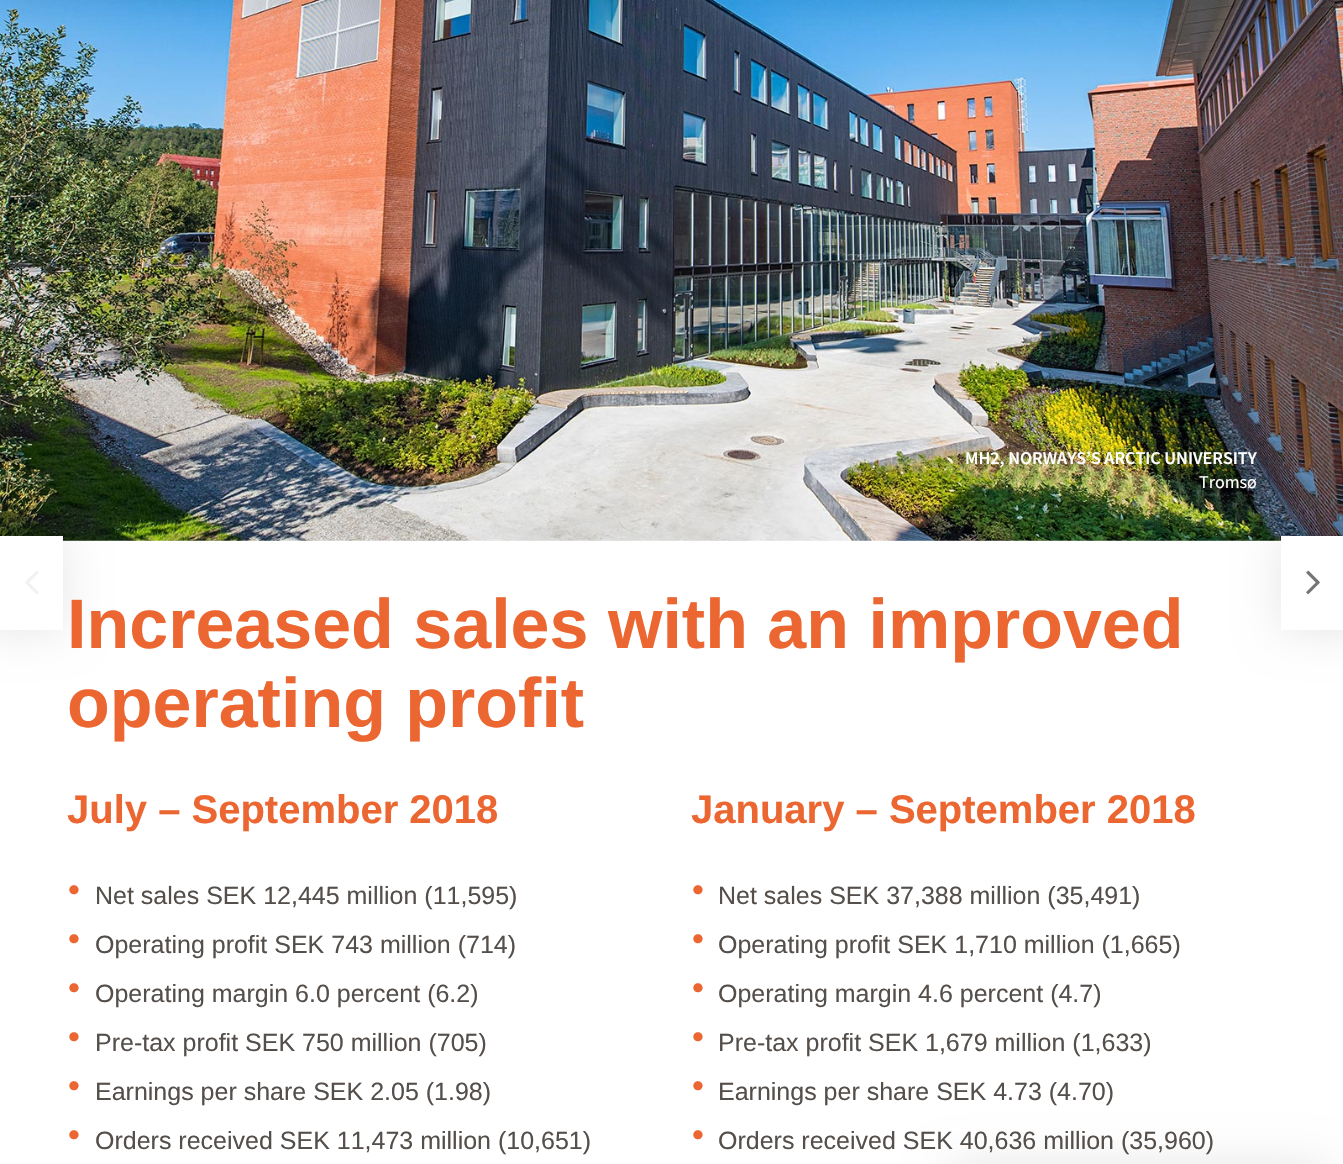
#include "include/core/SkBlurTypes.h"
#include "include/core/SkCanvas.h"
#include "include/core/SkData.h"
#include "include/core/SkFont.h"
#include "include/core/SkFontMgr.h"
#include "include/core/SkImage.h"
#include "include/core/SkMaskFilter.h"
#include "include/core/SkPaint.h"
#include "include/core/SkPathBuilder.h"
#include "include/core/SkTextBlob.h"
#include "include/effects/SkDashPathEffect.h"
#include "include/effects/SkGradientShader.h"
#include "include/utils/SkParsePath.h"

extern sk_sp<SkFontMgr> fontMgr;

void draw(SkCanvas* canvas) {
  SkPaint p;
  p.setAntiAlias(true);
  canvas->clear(SK_ColorWHITE);
  canvas->drawImageRect(SkImages::DeferredFromEncodedData(SkData::MakeFromFileName("images/3.png")), SkRect::MakeLTRB(0, 0, 1343, 541), SkSamplingOptions());
  p.setColor(SkColorSetARGB(26, 0, 0, 0));
  p.setMaskFilter(SkMaskFilter::MakeBlur(kNormal_SkBlurStyle, 22));
  canvas->drawRect(SkRect::MakeLTRB(0, -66, 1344, 0), p);
  p.setMaskFilter(nullptr);
  p.setMaskFilter(SkMaskFilter::MakeBlur(kNormal_SkBlurStyle, 22));
  canvas->drawRect(SkRect::MakeLTRB(950, 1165, 1325, 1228), p);
  p.setMaskFilter(nullptr);
  p.setMaskFilter(SkMaskFilter::MakeBlur(kNormal_SkBlurStyle, 22));
  canvas->drawRect(SkRect::MakeLTRB(-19, 536, 63, 630), p);
  p.setMaskFilter(nullptr);
  p.setColor(SK_ColorWHITE);
  canvas->drawRect(SkRect::MakeLTRB(0, 536, 63, 630), p);
  p.setColor(SkColorSetARGB(26, 0, 0, 0));
  p.setMaskFilter(SkMaskFilter::MakeBlur(kNormal_SkBlurStyle, 22));
  canvas->drawRect(SkRect::MakeLTRB(1281, 536, 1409, 630), p);
  p.setMaskFilter(nullptr);
  canvas->drawImageRect(SkImages::DeferredFromEncodedData(SkData::MakeFromFileName("images/1.png")), SkRect::MakeLTRB(25, 571, 39, 594), SkSamplingOptions());
  p.setColor(SK_ColorWHITE);
  canvas->drawRect(SkRect::MakeLTRB(1281, 536, 1343, 630), p);
  canvas->drawImageRect(SkImages::DeferredFromEncodedData(SkData::MakeFromFileName("images/2.png")), SkRect::MakeLTRB(1306, 570, 1320, 595), SkSamplingOptions());
  SkFont font1(fontMgr->matchFamilyStyle("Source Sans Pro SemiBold", SkFontStyle(600, SkFontStyle::kNormal_Width, SkFontStyle::kUpright_Slant)), 18);
  font1.setSubpixel(true);
  canvas->drawString("MH2, NORWAYS’S ARCTIC UNIVERSITY", 965, 464, font1, p);
  SkFont font2(fontMgr->matchFamilyStyle("Source Sans Pro", SkFontStyle::Normal()), 18);
  font2.setSubpixel(true);
  canvas->drawString("Tromsø", 1199, 488, font2, p);
  SkFont font3(fontMgr->matchFamilyStyle("Liberation Sans", SkFontStyle::Bold()), 70);
  font3.setSubpixel(true);
  p.setColor(SkColorSetRGB(235, 102, 49));
  canvas->drawString("Increased sales with an improved", 67, 648, font3, p);
  canvas->drawString("operating profit", 67, 727, font3, p);
  SkFont font4(fontMgr->matchFamilyStyle("Liberation Sans", SkFontStyle::Bold()), 40);
  font4.setSubpixel(true);
  canvas->drawString("July – September 2018", 67, 823, font4, p);
  SkFont font5(fontMgr->matchFamilyStyle("Liberation Sans", SkFontStyle::Normal()), 34);
  font5.setSubpixel(true);
  canvas->drawString("•", 68, 901, font5, p);
  SkFont font6(fontMgr->matchFamilyStyle("Liberation Sans", SkFontStyle::Normal()), 25);
  font6.setSubpixel(true);
  p.setColor(SkColorSetRGB(85, 79, 75));
  canvas->drawString("Net sales SEK 12,445 million (11,595)", 95, 904, font6, p);
  p.setColor(SkColorSetRGB(235, 102, 49));
  canvas->drawString("•", 68, 950, font5, p);
  p.setColor(SkColorSetRGB(85, 79, 75));
  canvas->drawString("Operating profit SEK 743 million (714)", 95, 953, font6, p);
  p.setColor(SkColorSetRGB(235, 102, 49));
  canvas->drawString("•", 68, 999, font5, p);
  p.setColor(SkColorSetRGB(85, 79, 75));
  canvas->drawString("Operating margin 6.0 percent (6.2)", 95, 1002, font6, p);
  p.setColor(SkColorSetRGB(235, 102, 49));
  canvas->drawString("•", 68, 1048, font5, p);
  p.setColor(SkColorSetRGB(85, 79, 75));
  canvas->drawString("Pre-tax profit SEK 750 million (705)", 95, 1051, font6, p);
  p.setColor(SkColorSetRGB(235, 102, 49));
  canvas->drawString("•", 68, 1097, font5, p);
  p.setColor(SkColorSetRGB(85, 79, 75));
  canvas->drawString("Earnings per share SEK 2.05 (1.98)", 95, 1100, font6, p);
  p.setColor(SkColorSetRGB(235, 102, 49));
  canvas->drawString("•", 68, 1146, font5, p);
  p.setColor(SkColorSetRGB(85, 79, 75));
  canvas->drawString("Orders received SEK 11,473 million (10,651)", 95, 1149, font6, p);
  p.setColor(SkColorSetRGB(235, 102, 49));
  canvas->drawString("January – September 2018", 691, 823, font4, p);
  canvas->drawString("•", 692, 901, font5, p);
  p.setColor(SkColorSetRGB(85, 79, 75));
  canvas->drawString("Net sales SEK 37,388 million (35,491)", 718, 904, font6, p);
  p.setColor(SkColorSetRGB(235, 102, 49));
  canvas->drawString("•", 692, 950, font5, p);
  p.setColor(SkColorSetRGB(85, 79, 75));
  canvas->drawString("Operating profit SEK 1,710 million (1,665)", 718, 953, font6, p);
  p.setColor(SkColorSetRGB(235, 102, 49));
  canvas->drawString("•", 692, 999, font5, p);
  p.setColor(SkColorSetRGB(85, 79, 75));
  canvas->drawString("Operating margin 4.6 percent (4.7)", 718, 1002, font6, p);
  p.setColor(SkColorSetRGB(235, 102, 49));
  canvas->drawString("•", 692, 1048, font5, p);
  p.setColor(SkColorSetRGB(85, 79, 75));
  canvas->drawString("Pre-tax profit SEK 1,679 million (1,633)", 718, 1051, font6, p);
  p.setColor(SkColorSetRGB(235, 102, 49));
  canvas->drawString("•", 692, 1097, font5, p);
  p.setColor(SkColorSetRGB(85, 79, 75));
  canvas->drawString("Earnings per share SEK 4.73 (4.70)", 718, 1100, font6, p);
  p.setColor(SkColorSetRGB(235, 102, 49));
  canvas->drawString("•", 692, 1146, font5, p);
  p.setColor(SkColorSetRGB(85, 79, 75));
  canvas->drawString("Orders received SEK 40,636 million (35,960)", 718, 1149, font6, p);
}
